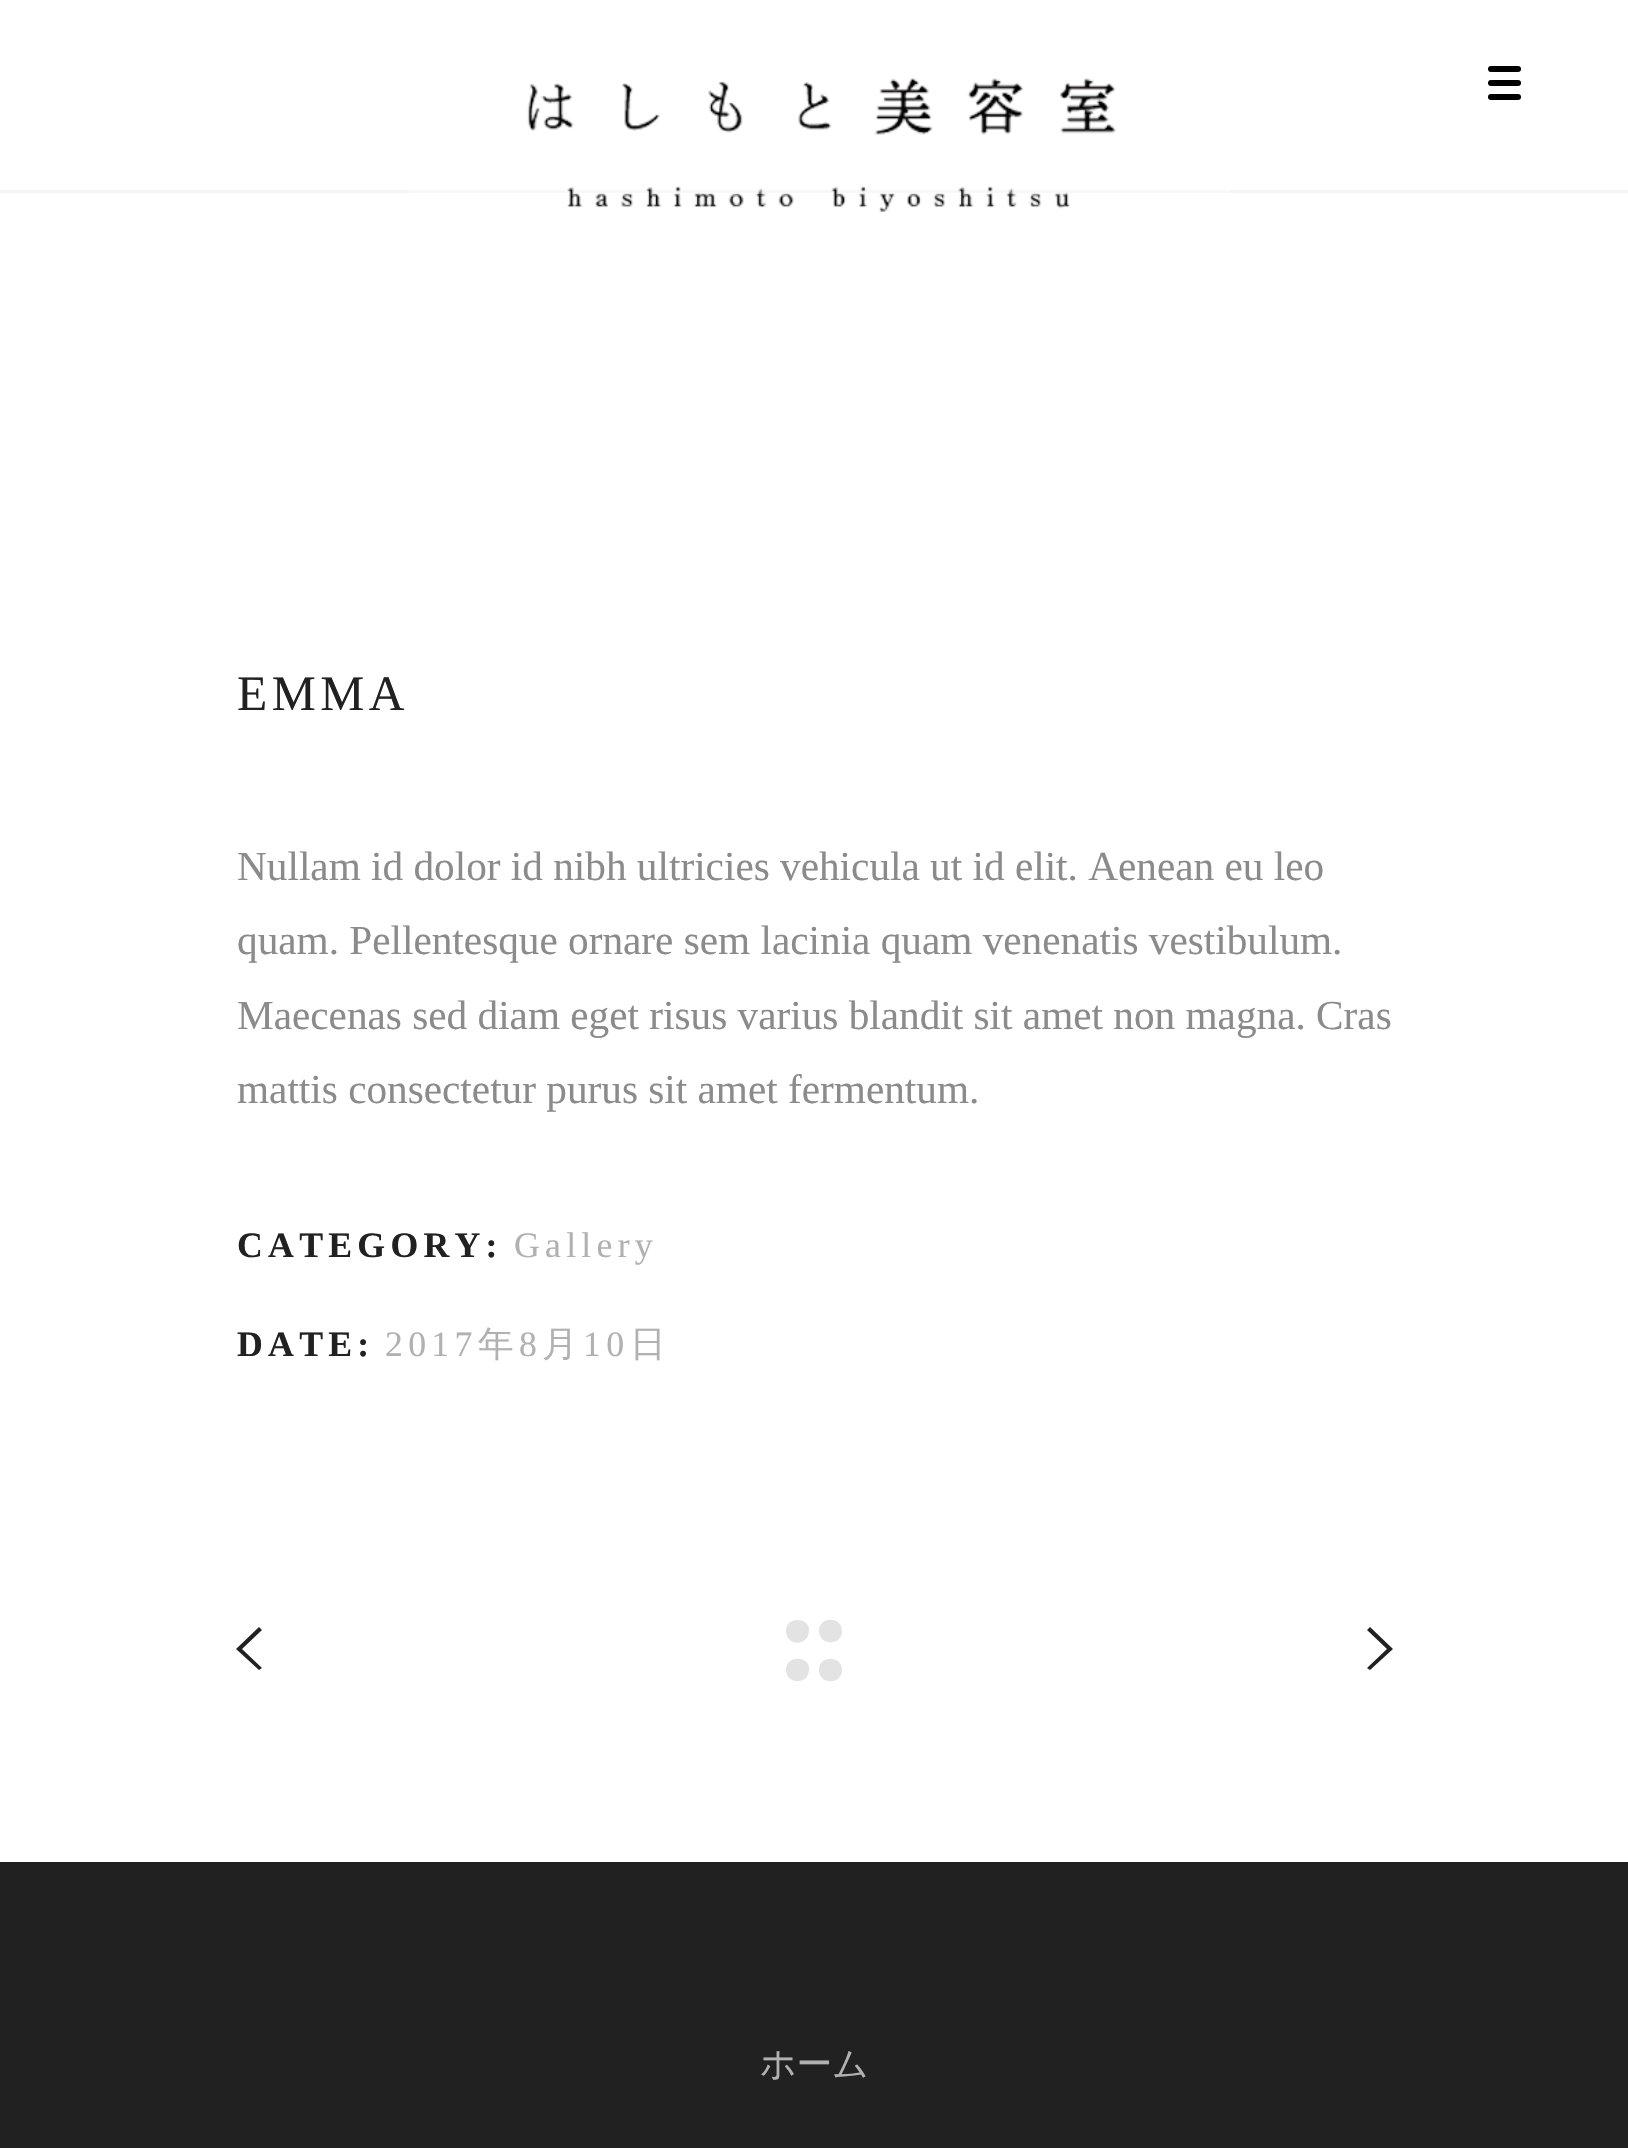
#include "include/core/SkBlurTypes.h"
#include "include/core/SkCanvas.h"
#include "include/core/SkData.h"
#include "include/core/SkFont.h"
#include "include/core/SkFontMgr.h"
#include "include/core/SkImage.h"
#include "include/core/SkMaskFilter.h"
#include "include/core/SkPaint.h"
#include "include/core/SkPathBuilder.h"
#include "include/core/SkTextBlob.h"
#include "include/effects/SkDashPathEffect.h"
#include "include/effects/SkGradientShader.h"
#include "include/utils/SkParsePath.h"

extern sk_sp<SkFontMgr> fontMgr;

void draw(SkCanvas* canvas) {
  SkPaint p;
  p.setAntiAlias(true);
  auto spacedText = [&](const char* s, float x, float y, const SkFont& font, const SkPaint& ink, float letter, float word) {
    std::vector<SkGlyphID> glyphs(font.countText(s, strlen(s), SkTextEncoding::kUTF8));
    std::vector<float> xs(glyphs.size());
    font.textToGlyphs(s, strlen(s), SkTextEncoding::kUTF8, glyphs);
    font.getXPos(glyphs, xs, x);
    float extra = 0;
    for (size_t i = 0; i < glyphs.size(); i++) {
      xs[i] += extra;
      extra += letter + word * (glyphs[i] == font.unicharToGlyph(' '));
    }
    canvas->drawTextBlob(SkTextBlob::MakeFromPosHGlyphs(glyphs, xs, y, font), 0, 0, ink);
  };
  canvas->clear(SK_ColorWHITE);
  p.setColor(SK_ColorBLACK);
  canvas->drawRoundRect(SkRect::MakeLTRB(1488, 80, 1521, 86), 3, 3, p);
  canvas->drawRoundRect(SkRect::MakeLTRB(1488, 66, 1521, 72), 3, 3, p);
  canvas->drawRoundRect(SkRect::MakeLTRB(1488, 94, 1521, 100), 3, 3, p);
  p.setColor(SkColorSetRGB(244, 244, 244));
  canvas->drawRect(SkRect::MakeLTRB(0, 190, 1628, 193), p);
  canvas->drawImageRect(SkImages::DeferredFromEncodedData(SkData::MakeFromFileName("images/1.png")), SkRect::MakeLTRB(409, 78, 1230, 212), SkSamplingOptions());
  p.setColor(SkColorSetRGB(33, 33, 33));
  canvas->drawPath(SkPathBuilder().moveTo(262, 1630).lineTo(242, 1649).lineTo(262, 1668).lineTo(259, 1670).lineTo(236, 1649).lineTo(259, 1627).close().detach(), p);
  p.setColor(SkColorSetRGB(227, 227, 227));
  canvas->drawPath(SkPathBuilder().moveTo(786, 1631).cubicTo(786, 1615, 811, 1618, 809, 1631).cubicTo(808, 1647, 786, 1646, 786, 1631).close().moveTo(819, 1631).cubicTo(819, 1616, 842, 1616, 842, 1631).cubicTo(842, 1646, 819, 1646, 819, 1631).close().moveTo(786, 1670).cubicTo(786, 1654, 811, 1656, 809, 1670).cubicTo(808, 1686, 786, 1684, 786, 1670).close().moveTo(819, 1670).cubicTo(819, 1655, 842, 1655, 842, 1670).cubicTo(842, 1685, 819, 1685, 819, 1670).close().detach(), p);
  p.setColor(SkColorSetRGB(33, 33, 33));
  canvas->drawPath(SkPathBuilder().moveTo(1367, 1630).lineTo(1370, 1627).lineTo(1393, 1649).lineTo(1370, 1670).lineTo(1367, 1668).lineTo(1387, 1649).close().detach(), p);
  canvas->drawRect(SkRect::MakeLTRB(0, 1862, 1628, 2148), p);
  SkFont font1(fontMgr->matchFamilyStyle("Liberation Serif", SkFontStyle::Normal()), 49.5f);
  font1.setSubpixel(true);
  spacedText("EMMA", 237, 710, font1, p, 4.5f, 0);
  SkFont font2(fontMgr->matchFamilyStyle("Liberation Serif", SkFontStyle::Normal()), 41.25f);
  font2.setSubpixel(true);
  p.setColor(SkColorSetRGB(139, 139, 139));
  canvas->drawString("Nullam id dolor id nibh ultricies vehicula ut id elit. Aenean eu leo", 237, 880, font2, p);
  canvas->drawString("quam. Pellentesque ornare sem lacinia quam venenatis vestibulum.", 237, 954, font2, p);
  canvas->drawString("Maecenas sed diam eget risus varius blandit sit amet non magna. Cras", 237, 1029, font2, p);
  canvas->drawString("mattis consectetur purus sit amet fermentum.", 237, 1103, font2, p);
  SkFont font3(fontMgr->matchFamilyStyle("Liberation Serif", SkFontStyle::Bold()), 35.75f);
  font3.setSubpixel(true);
  p.setColor(SkColorSetRGB(33, 33, 33));
  spacedText("CATEGORY:", 237, 1257, font3, p, 5.25f, 0);
  SkFont font4(fontMgr->matchFamilyStyle("Liberation Serif", SkFontStyle::Normal()), 35.75f);
  font4.setSubpixel(true);
  p.setColor(SkColorSetRGB(177, 177, 177));
  spacedText("Gallery", 514, 1257, font4, p, 5.25f, 0);
  p.setColor(SkColorSetRGB(33, 33, 33));
  spacedText("DATE:", 237, 1356, font3, p, 5.25f, 0);
  p.setColor(SkColorSetRGB(177, 177, 177));
  spacedText("2017", 385, 1356, font4, p, 5.25f, 0);
  SkFont font5(fontMgr->matchFamilyStyle("WenQuanYi Zen Hei", SkFontStyle(500, SkFontStyle::kNormal_Width, SkFontStyle::kUpright_Slant)), 35.75f);
  font5.setSubpixel(true);
  spacedText("年", 478, 1356, font5, p, 5.25f, 0);
  spacedText("8", 519, 1356, font4, p, 5.25f, 0);
  spacedText("月", 542, 1356, font5, p, 5.25f, 0);
  spacedText("10", 583, 1356, font4, p, 5.25f, 0);
  spacedText("日", 630, 1356, font5, p, 5.25f, 0);
  canvas->drawString("ホーム", 760, 2076, font5, p);
}
